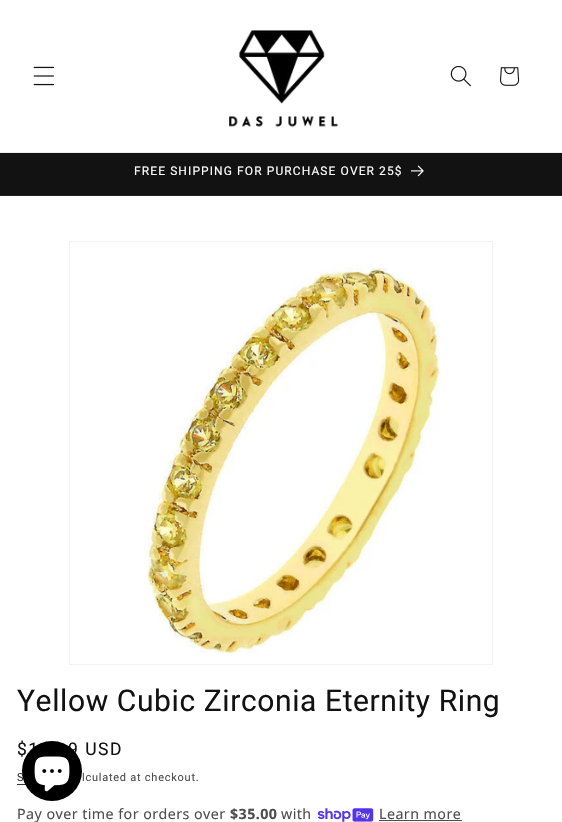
#include "include/core/SkBlurTypes.h"
#include "include/core/SkCanvas.h"
#include "include/core/SkData.h"
#include "include/core/SkFont.h"
#include "include/core/SkFontMgr.h"
#include "include/core/SkImage.h"
#include "include/core/SkMaskFilter.h"
#include "include/core/SkPaint.h"
#include "include/core/SkPathBuilder.h"
#include "include/core/SkTextBlob.h"
#include "include/effects/SkDashPathEffect.h"
#include "include/effects/SkGradientShader.h"
#include "include/utils/SkParsePath.h"

extern sk_sp<SkFontMgr> fontMgr;

void draw(SkCanvas* canvas) {
  SkPaint p;
  p.setAntiAlias(true);
  auto spacedText = [&](const char* s, float x, float y, const SkFont& font, const SkPaint& ink, float letter, float word) {
    std::vector<SkGlyphID> glyphs(font.countText(s, strlen(s), SkTextEncoding::kUTF8));
    std::vector<float> xs(glyphs.size());
    font.textToGlyphs(s, strlen(s), SkTextEncoding::kUTF8, glyphs);
    font.getXPos(glyphs, xs, x);
    float extra = 0;
    for (size_t i = 0; i < glyphs.size(); i++) {
      xs[i] += extra;
      extra += letter + word * (glyphs[i] == font.unicharToGlyph(' '));
    }
    canvas->drawTextBlob(SkTextBlob::MakeFromPosHGlyphs(glyphs, xs, y, font), 0, 0, ink);
  };
  canvas->clear(SK_ColorWHITE);
  p.setColor(SkColorSetRGB(236, 236, 236));
  canvas->drawRect(SkRect::MakeLTRB(0, 152, 562, 153), p);
  canvas->drawImageRect(SkImages::DeferredFromEncodedData(SkData::MakeFromFileName("images/1.png")), SkRect::MakeLTRB(33, 66, 54, 86), SkSamplingOptions());
  canvas->drawImageRect(SkImages::DeferredFromEncodedData(SkData::MakeFromFileName("images/2.png")), SkRect::MakeLTRB(229, 30, 338, 127), SkSamplingOptions());
  canvas->drawImageRect(SkImages::DeferredFromEncodedData(SkData::MakeFromFileName("images/3.png")), SkRect::MakeLTRB(450, 65, 471, 87), SkSamplingOptions());
  canvas->drawImageRect(SkImages::DeferredFromEncodedData(SkData::MakeFromFileName("images/4.png")), SkRect::MakeLTRB(500, 67, 520, 86), SkSamplingOptions());
  p.setColor(SkColorSetRGB(18, 18, 18));
  canvas->drawRect(SkRect::MakeLTRB(0, 153, 562, 195), p);
  p.setColor(SkColorSetRGB(37, 37, 37));
  canvas->drawRect(SkRect::MakeLTRB(0, 195, 562, 196), p);
  canvas->drawImageRect(SkImages::DeferredFromEncodedData(SkData::MakeFromFileName("images/5.png")), SkRect::MakeLTRB(411, 165, 424, 177), SkSamplingOptions());
  p.setStyle(SkPaint::kStroke_Style);
  p.setStrokeWidth(1);
  p.setColor(SkColorSetRGB(243, 243, 243));
  canvas->drawRect(SkRect::MakeLTRB(69.5f, 241.5f, 492.5f, 664.5f), p);
  canvas->drawImageRect(SkImages::DeferredFromEncodedData(SkData::MakeFromFileName("images/6.png")), SkRect::MakeLTRB(145, 267, 441, 656), SkSamplingOptions());
  p.setStyle(SkPaint::kFill_Style);
  p.setColor(SkColorSetRGB(54, 54, 54));
  canvas->drawRect(SkRect::MakeLTRB(17, 784, 26, 785), p);
  canvas->drawImageRect(SkImages::DeferredFromEncodedData(SkData::MakeFromFileName("images/7.png")), SkRect::MakeLTRB(317, 808, 374, 822), SkSamplingOptions());
  p.setColor(SkColorSetRGB(77, 77, 77));
  canvas->drawRect(SkRect::MakeLTRB(379, 820, 462, 821), p);
  SkFont font1(fontMgr->matchFamilyStyle("Roboto", SkFontStyle::Normal()), 12);
  font1.setSubpixel(true);
  p.setColor(SK_ColorWHITE);
  spacedText("FREE SHIPPING FOR PURCHASE OVER 25$", 134, 175, font1, p, 1.1f, 0);
  SkFont font2(fontMgr->matchFamilyStyle("Roboto", SkFontStyle::Normal()), 30);
  font2.setSubpixel(true);
  p.setColor(SkColorSetRGB(18, 18, 18));
  spacedText("Yellow Cubic Zirconia Eternity Ring", 17, 711, font2, p, 0.6f, 0);
  SkFont font3(fontMgr->matchFamilyStyle("Roboto", SkFontStyle::Normal()), 17.5f);
  font3.setSubpixel(true);
  spacedText("$1", 17, 755, font3, p, 1.5f, 0);
  spacedText("9 USD", 68, 755, font3, p, 1.5f, 0);
  SkFont font4(fontMgr->matchFamilyStyle("Roboto", SkFontStyle::Normal()), 11);
  font4.setSubpixel(true);
  p.setColor(SkColorSetRGB(54, 54, 54));
  spacedText("S", 17, 781, font4, p, 0.75f, 0);
  p.setColor(SkColorSetRGB(77, 77, 77));
  spacedText("lculated at checkout.", 82, 781, font4, p, 0.75f, 0);
  SkFont font5(fontMgr->matchFamilyStyle("Noto Sans", SkFontStyle::Normal()), 14.25f);
  font5.setSubpixel(true);
  spacedText("Pay over time for orders over", 17, 819, font5, p, 0.45f, 0);
  SkFont font6(fontMgr->matchFamilyStyle("Noto Sans", SkFontStyle::Bold()), 14.25f);
  font6.setSubpixel(true);
  spacedText("$35.00", 230, 819, font6, p, 0.45f, 0);
  spacedText("with", 281, 819, font5, p, 0.45f, 0);
  spacedText("Learn more", 379, 819, font5, p, 0.45f, 0);
  p.setColor(SK_ColorBLACK);
  canvas->drawCircle(52, 771, 30, p);
  canvas->drawImageRect(SkImages::DeferredFromEncodedData(SkData::MakeFromFileName("images/8.png")), SkRect::MakeLTRB(34, 756, 70, 792), SkSamplingOptions());
}
